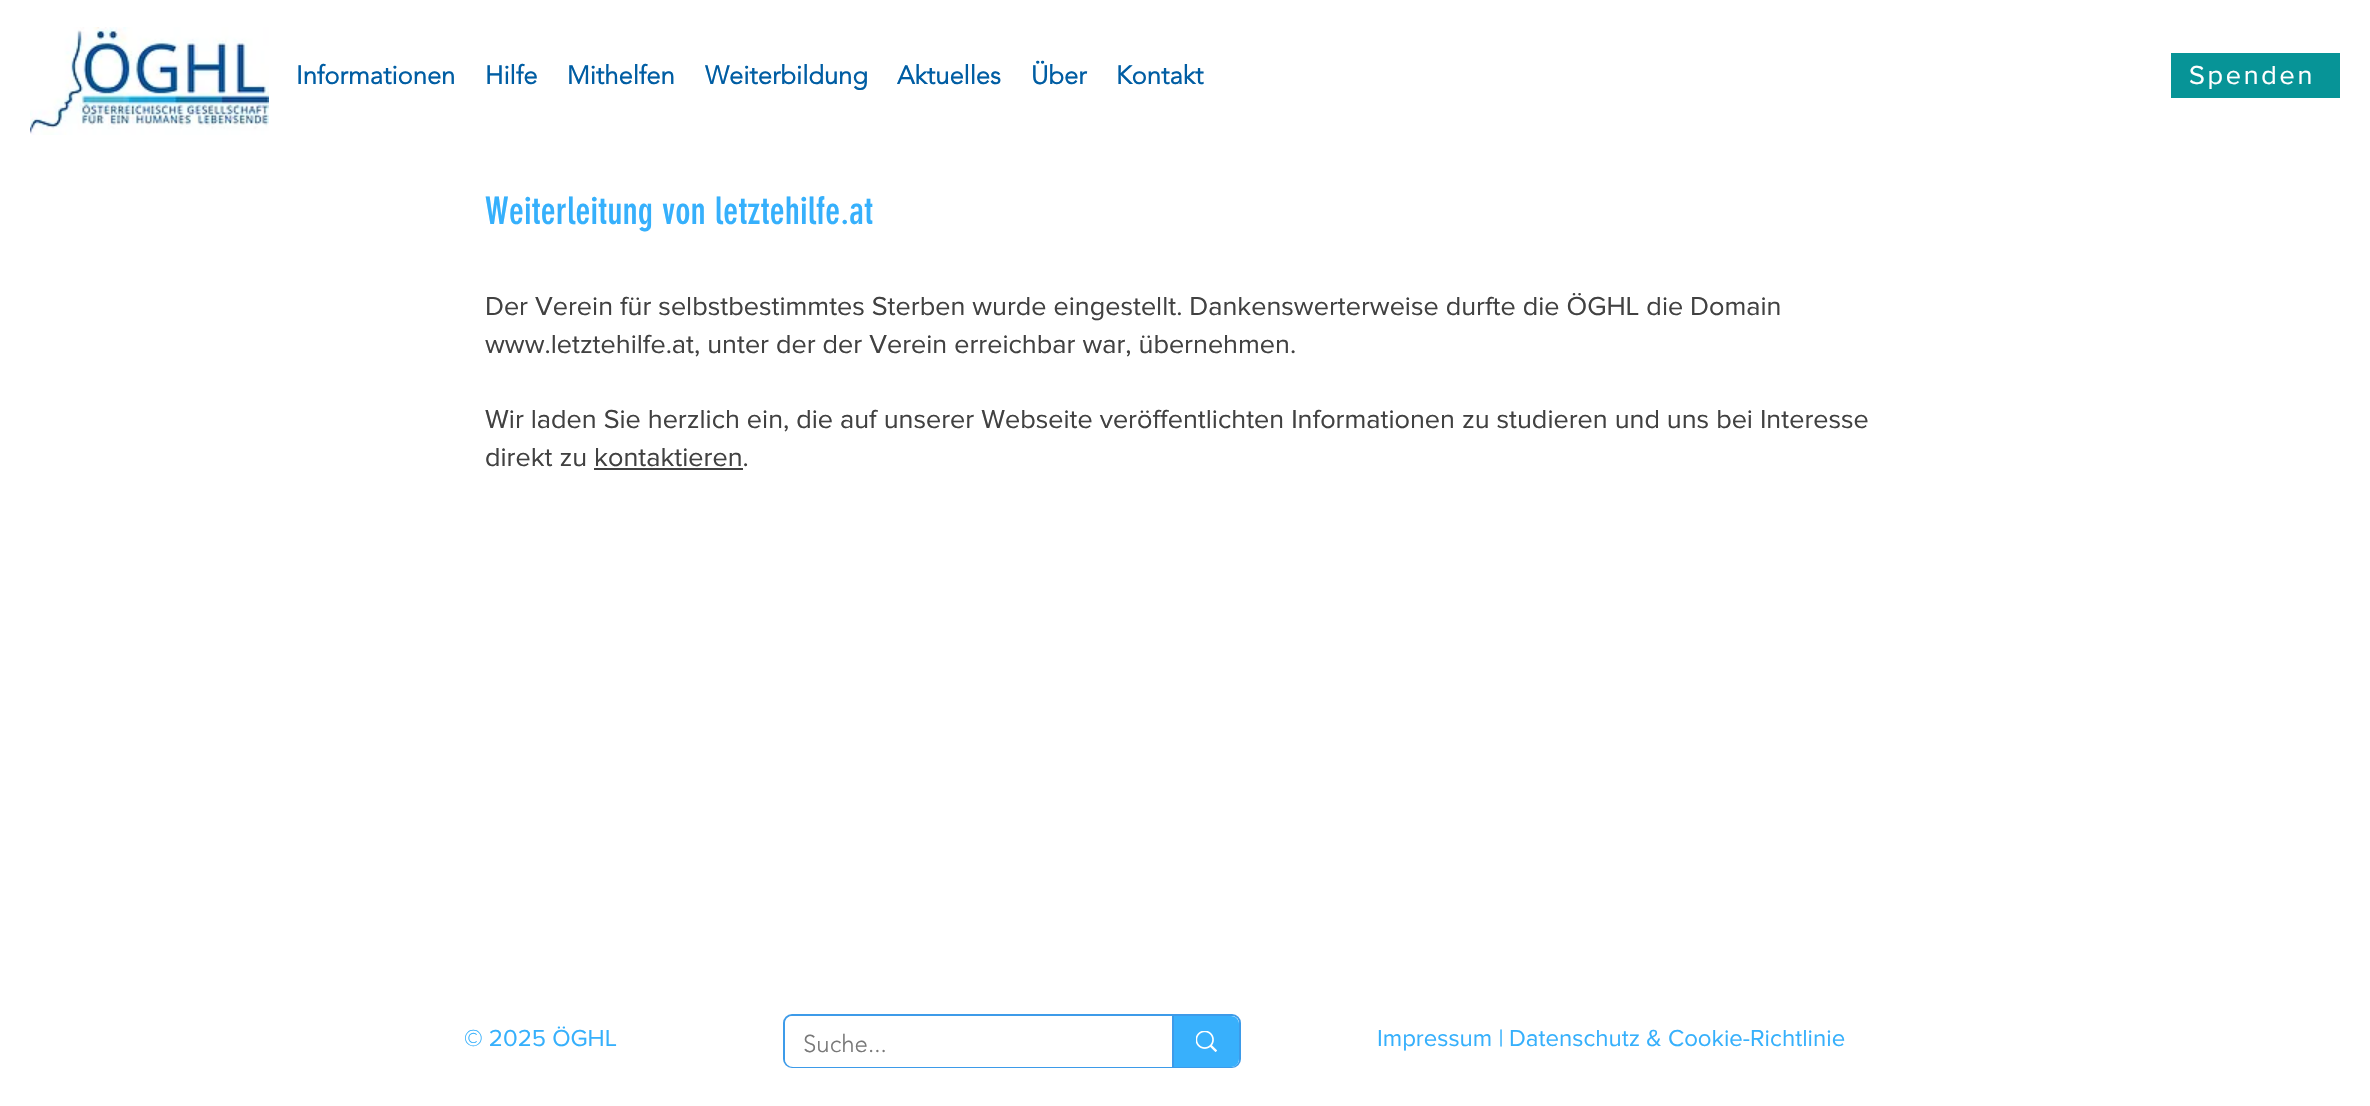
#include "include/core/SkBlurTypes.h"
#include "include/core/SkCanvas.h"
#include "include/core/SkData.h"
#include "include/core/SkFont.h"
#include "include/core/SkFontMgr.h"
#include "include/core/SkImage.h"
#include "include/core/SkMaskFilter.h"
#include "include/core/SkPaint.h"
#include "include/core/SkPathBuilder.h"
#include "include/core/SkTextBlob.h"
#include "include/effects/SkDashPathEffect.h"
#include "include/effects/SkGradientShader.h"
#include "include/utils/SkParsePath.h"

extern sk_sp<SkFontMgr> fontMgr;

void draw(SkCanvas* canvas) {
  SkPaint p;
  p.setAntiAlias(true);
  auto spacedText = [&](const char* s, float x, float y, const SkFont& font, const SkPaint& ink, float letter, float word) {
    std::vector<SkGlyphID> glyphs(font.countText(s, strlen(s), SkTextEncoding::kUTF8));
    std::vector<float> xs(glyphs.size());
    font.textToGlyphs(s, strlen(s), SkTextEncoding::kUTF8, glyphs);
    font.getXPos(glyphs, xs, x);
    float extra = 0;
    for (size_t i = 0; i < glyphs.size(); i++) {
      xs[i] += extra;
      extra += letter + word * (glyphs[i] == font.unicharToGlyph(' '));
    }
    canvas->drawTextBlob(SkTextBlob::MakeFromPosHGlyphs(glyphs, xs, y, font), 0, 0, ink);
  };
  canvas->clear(SK_ColorWHITE);
  canvas->drawImageRect(SkImages::DeferredFromEncodedData(SkData::MakeFromFileName("images/1.png")), SkRect::MakeLTRB(30, 27, 269, 135), SkSamplingOptions());
  p.setColor(SkColorSetRGB(7, 148, 151));
  canvas->drawRect(SkRect::MakeLTRB(2171, 53, 2340, 98), p);
  p.setColor(SkColorSetRGB(65, 65, 65));
  canvas->drawRect(SkRect::MakeLTRB(594, 468, 743, 470), p);
  p.setStyle(SkPaint::kStroke_Style);
  p.setStrokeWidth(2);
  p.setColor(SkColorSetRGB(61, 155, 233));
  canvas->drawRoundRect(SkRect::MakeLTRB(784, 1015, 1240, 1067), 8, 8, p);
  p.setStyle(SkPaint::kFill_Style);
  p.setColor(SK_ColorWHITE);
  canvas->drawRoundRect(SkRect::MakeLTRB(785, 1016, 1239, 1067), 8, 8, p);
  p.setColor(SkColorSetRGB(56, 176, 252));
  canvas->drawPath(SkPathBuilder().moveTo(1172, 1016).lineTo(1231, 1016).cubicTo(1235.5f, 1016, 1239, 1019.5f, 1239, 1024).lineTo(1239, 1059).cubicTo(1239, 1063.5f, 1235.5f, 1067, 1231, 1067).lineTo(1172, 1067).close().detach(), p);
  p.setColor(SkColorSetRGB(61, 155, 233));
  canvas->drawRect(SkRect::MakeLTRB(1172, 1016, 1174, 1067), p);
  canvas->drawImageRect(SkImages::DeferredFromEncodedData(SkData::MakeFromFileName("images/2.png")), SkRect::MakeLTRB(1196, 1031, 1217, 1052), SkSamplingOptions());
  SkFont font1(fontMgr->matchFamilyStyle("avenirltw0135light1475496", SkFontStyle::Bold()), 25.5f);
  font1.setSubpixel(true);
  p.setColor(SkColorSetRGB(0, 93, 163));
  canvas->drawString("Informationen", 296, 84, font1, p);
  canvas->drawString("Hilfe", 485, 84, font1, p);
  canvas->drawString("Mithelfen", 567, 84, font1, p);
  canvas->drawString("Weiterbildung", 705, 84, font1, p);
  canvas->drawString("Aktuelles", 897, 84, font1, p);
  canvas->drawString("Über", 1031, 84, font1, p);
  canvas->drawString("Kontakt", 1116, 84, font1, p);
  SkFont font2(fontMgr->matchFamilyStyle("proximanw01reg", SkFontStyle::Normal()), 27);
  font2.setSubpixel(true);
  p.setColor(SK_ColorWHITE);
  spacedText("Spenden", 2189, 84, font2, p, 2.75f, 0);
  SkFont font3(fontMgr->matchFamilyStyle("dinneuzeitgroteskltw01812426", SkFontStyle::Normal()), 37.5f);
  font3.setSubpixel(true);
  p.setColor(SkColorSetRGB(54, 176, 252));
  canvas->drawString("Weiterleitung von letztehilfe.at", 485, 224, font3, p);
  p.setColor(SkColorSetRGB(65, 65, 65));
  canvas->drawString("Der Verein für selbstbestimmtes Sterben wurde eingestellt. Dankenswerterweise durfte die ÖGHL die Domain", 485, 315, font2, p);
  canvas->drawString("www.letztehilfe.at, unter der der Verein erreichbar war, übernehmen.", 485, 353, font2, p);
  canvas->drawString("Wir laden Sie herzlich ein, die auf unserer Webseite veröffentlichten Informationen zu studieren und uns bei Interesse", 485, 428, font2, p);
  canvas->drawString("direkt zu kontaktieren.", 485, 466, font2, p);
  SkFont font4(fontMgr->matchFamilyStyle("proximanw01reg", SkFontStyle::Normal()), 24);
  font4.setSubpixel(true);
  p.setColor(SkColorSetRGB(54, 176, 252));
  canvas->drawString("© 2025 ÖGHL", 464, 1046, font4, p);
  SkFont font5(fontMgr->matchFamilyStyle("avenirltw0135light1475496", SkFontStyle(300, SkFontStyle::kNormal_Width, SkFontStyle::kUpright_Slant)), 24);
  font5.setSubpixel(true);
  p.setColor(SkColorSetRGB(120, 120, 120));
  canvas->drawString("Suche...", 803, 1052, font5, p);
  p.setColor(SkColorSetRGB(54, 176, 252));
  canvas->drawString("Impressum |", 1377, 1046, font4, p);
  canvas->drawString("Datenschutz & Cookie-Richtlinie", 1509, 1046, font4, p);
}
